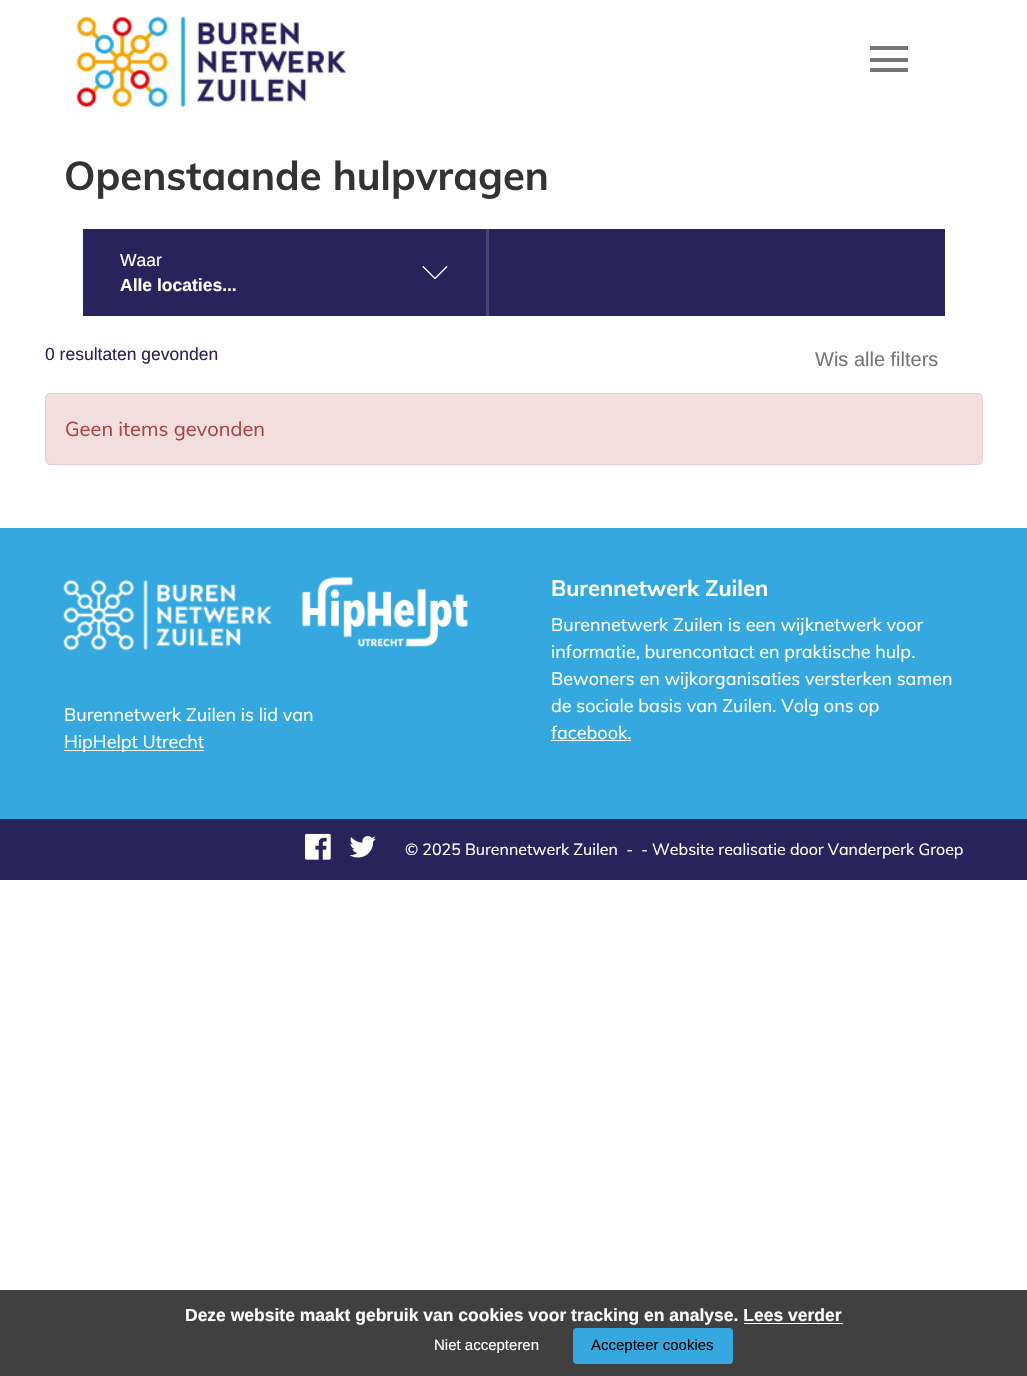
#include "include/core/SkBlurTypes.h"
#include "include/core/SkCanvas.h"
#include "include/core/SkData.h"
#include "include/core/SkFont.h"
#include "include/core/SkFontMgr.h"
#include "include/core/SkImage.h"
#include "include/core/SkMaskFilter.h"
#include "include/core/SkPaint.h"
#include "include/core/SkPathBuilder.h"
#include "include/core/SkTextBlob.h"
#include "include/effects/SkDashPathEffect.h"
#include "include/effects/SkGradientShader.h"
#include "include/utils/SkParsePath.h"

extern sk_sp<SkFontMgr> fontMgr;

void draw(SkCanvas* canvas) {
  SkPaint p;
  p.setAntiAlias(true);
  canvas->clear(SK_ColorWHITE);
  canvas->drawImageRect(SkImages::DeferredFromEncodedData(SkData::MakeFromFileName("images/1.png")), SkRect::MakeLTRB(75, 15, 347, 108), SkSamplingOptions());
  p.setColor(SkColorSetRGB(118, 118, 118));
  canvas->drawRect(SkRect::MakeLTRB(870, 46, 908, 50), p);
  canvas->drawRect(SkRect::MakeLTRB(870, 58, 908, 62), p);
  canvas->drawRect(SkRect::MakeLTRB(870, 68, 908, 72), p);
  p.setColor(SkColorSetRGB(41, 35, 92));
  canvas->drawRect(SkRect::MakeLTRB(83, 229, 945, 316), p);
  p.setColor(SkColorSetRGB(73, 68, 116));
  canvas->drawRect(SkRect::MakeLTRB(486, 229, 489, 316), p);
  canvas->drawImageRect(SkImages::DeferredFromEncodedData(SkData::MakeFromFileName("images/2.png")), SkRect::MakeLTRB(422, 266, 448, 280), SkSamplingOptions());
  p.setColor(SkColorSetRGB(242, 222, 222));
  canvas->drawRoundRect(SkRect::MakeLTRB(45.5f, 393.5f, 982.5f, 464.5f), 4.5f, 4.5f, p);
  p.setStyle(SkPaint::kStroke_Style);
  p.setStrokeWidth(1);
  p.setColor(SkColorSetRGB(235, 204, 209));
  canvas->drawRoundRect(SkRect::MakeLTRB(45.5f, 393.5f, 982.5f, 464.5f), 4.5f, 4.5f, p);
  p.setStyle(SkPaint::kFill_Style);
  p.setColor(SkColorSetRGB(53, 168, 224));
  canvas->drawRect(SkRect::MakeLTRB(0, 528, 1027, 819), p);
  canvas->drawImageRect(SkImages::DeferredFromEncodedData(SkData::MakeFromFileName("images/3.png")), SkRect::MakeLTRB(63, 579, 272, 651), SkSamplingOptions());
  canvas->drawImageRect(SkImages::DeferredFromEncodedData(SkData::MakeFromFileName("images/4.png")), SkRect::MakeLTRB(302, 577, 468, 647), SkSamplingOptions());
  p.setColor(SK_ColorWHITE);
  canvas->drawRect(SkRect::MakeLTRB(64, 750, 204, 751), p);
  canvas->drawRect(SkRect::MakeLTRB(551, 740, 631, 741), p);
  p.setColor(SkColorSetRGB(41, 35, 92));
  canvas->drawRect(SkRect::MakeLTRB(0, 819, 1027, 880), p);
  canvas->drawImageRect(SkImages::DeferredFromEncodedData(SkData::MakeFromFileName("images/5.png")), SkRect::MakeLTRB(305, 833, 331, 860), SkSamplingOptions());
  canvas->drawImageRect(SkImages::DeferredFromEncodedData(SkData::MakeFromFileName("images/6.png")), SkRect::MakeLTRB(349, 836, 376, 858), SkSamplingOptions());
  p.setColor(SkColorSetRGB(64, 64, 64));
  canvas->drawRect(SkRect::MakeLTRB(0, 1290, 1027, 1376), p);
  p.setColor(SK_ColorWHITE);
  canvas->drawRect(SkRect::MakeLTRB(744, 1323, 843, 1324), p);
  p.setColor(SkColorSetRGB(53, 168, 224));
  canvas->drawRoundRect(SkRect::MakeLTRB(573, 1328, 733, 1364), 4, 4, p);
  SkFont font1(fontMgr->matchFamilyStyle("Muli", SkFontStyle::Bold()), 40);
  font1.setSubpixel(true);
  p.setColor(SkColorSetRGB(51, 51, 51));
  canvas->drawString("Openstaande hulpvragen", 64, 190, font1, p);
  SkFont font2(fontMgr->matchFamilyStyle("Liberation Sans", SkFontStyle::Normal()), 17.5f);
  font2.setSubpixel(true);
  p.setColor(SK_ColorWHITE);
  canvas->drawString("Waar", 120, 266, font2, p);
  SkFont font3(fontMgr->matchFamilyStyle("Liberation Sans", SkFontStyle::Bold()), 17.5f);
  font3.setSubpixel(true);
  canvas->drawString("Alle locaties...", 120, 291, font3, p);
  p.setColor(SkColorSetRGB(41, 35, 92));
  canvas->drawString("0 resultaten gevonden", 45, 360, font2, p);
  SkFont font4(fontMgr->matchFamilyStyle("Liberation Sans", SkFontStyle::Normal()), 20);
  font4.setSubpixel(true);
  p.setColor(SkColorSetRGB(118, 118, 118));
  canvas->drawString("Wis alle filters", 815, 366, font4, p);
  SkFont font5(fontMgr->matchFamilyStyle("Muli", SkFontStyle::Normal()), 20);
  font5.setSubpixel(true);
  p.setColor(SkColorSetRGB(169, 68, 66));
  canvas->drawString("Geen items gevonden", 65, 436, font5, p);
  SkFont font6(fontMgr->matchFamilyStyle("Muli", SkFontStyle::Normal()), 18);
  font6.setSubpixel(true);
  p.setColor(SK_ColorWHITE);
  canvas->drawString("Burennetwerk Zuilen is lid van", 64, 721, font6, p);
  canvas->drawString("HipHelpt Utrecht", 64, 748, font6, p);
  SkFont font7(fontMgr->matchFamilyStyle("Muli", SkFontStyle::Bold()), 22);
  font7.setSubpixel(true);
  canvas->drawString("Burennetwerk Zuilen", 551, 596, font7, p);
  canvas->drawString("Burennetwerk Zuilen is een wijknetwerk voor", 551, 631, font6, p);
  canvas->drawString("informatie, burencontact en praktische hulp.", 551, 658, font6, p);
  canvas->drawString("Bewoners en wijkorganisaties versterken samen", 551, 685, font6, p);
  canvas->drawString("de sociale basis van Zuilen. Volg ons op", 551, 712, font6, p);
  canvas->drawString("facebook.", 551, 739, font6, p);
  SkFont font8(fontMgr->matchFamilyStyle("Muli", SkFontStyle::Normal()), 16);
  font8.setSubpixel(true);
  canvas->drawString("© 2025 Burennetwerk Zuilen  -", 405, 855, font8, p);
  canvas->drawString("- Website realisatie door Vanderperk Groep", 641, 855, font8, p);
  canvas->drawString("Deze website maakt gebruik van cookies voor tracking en analyse. Lees verder", 185, 1321, font3, p);
  SkFont font9(fontMgr->matchFamilyStyle("Liberation Sans", SkFontStyle::Normal()), 15);
  font9.setSubpixel(true);
  canvas->drawString("Niet accepteren", 434, 1350, font9, p);
  p.setColor(SK_ColorBLACK);
  canvas->drawString("Accepteer cookies", 591, 1350, font9, p);
}
